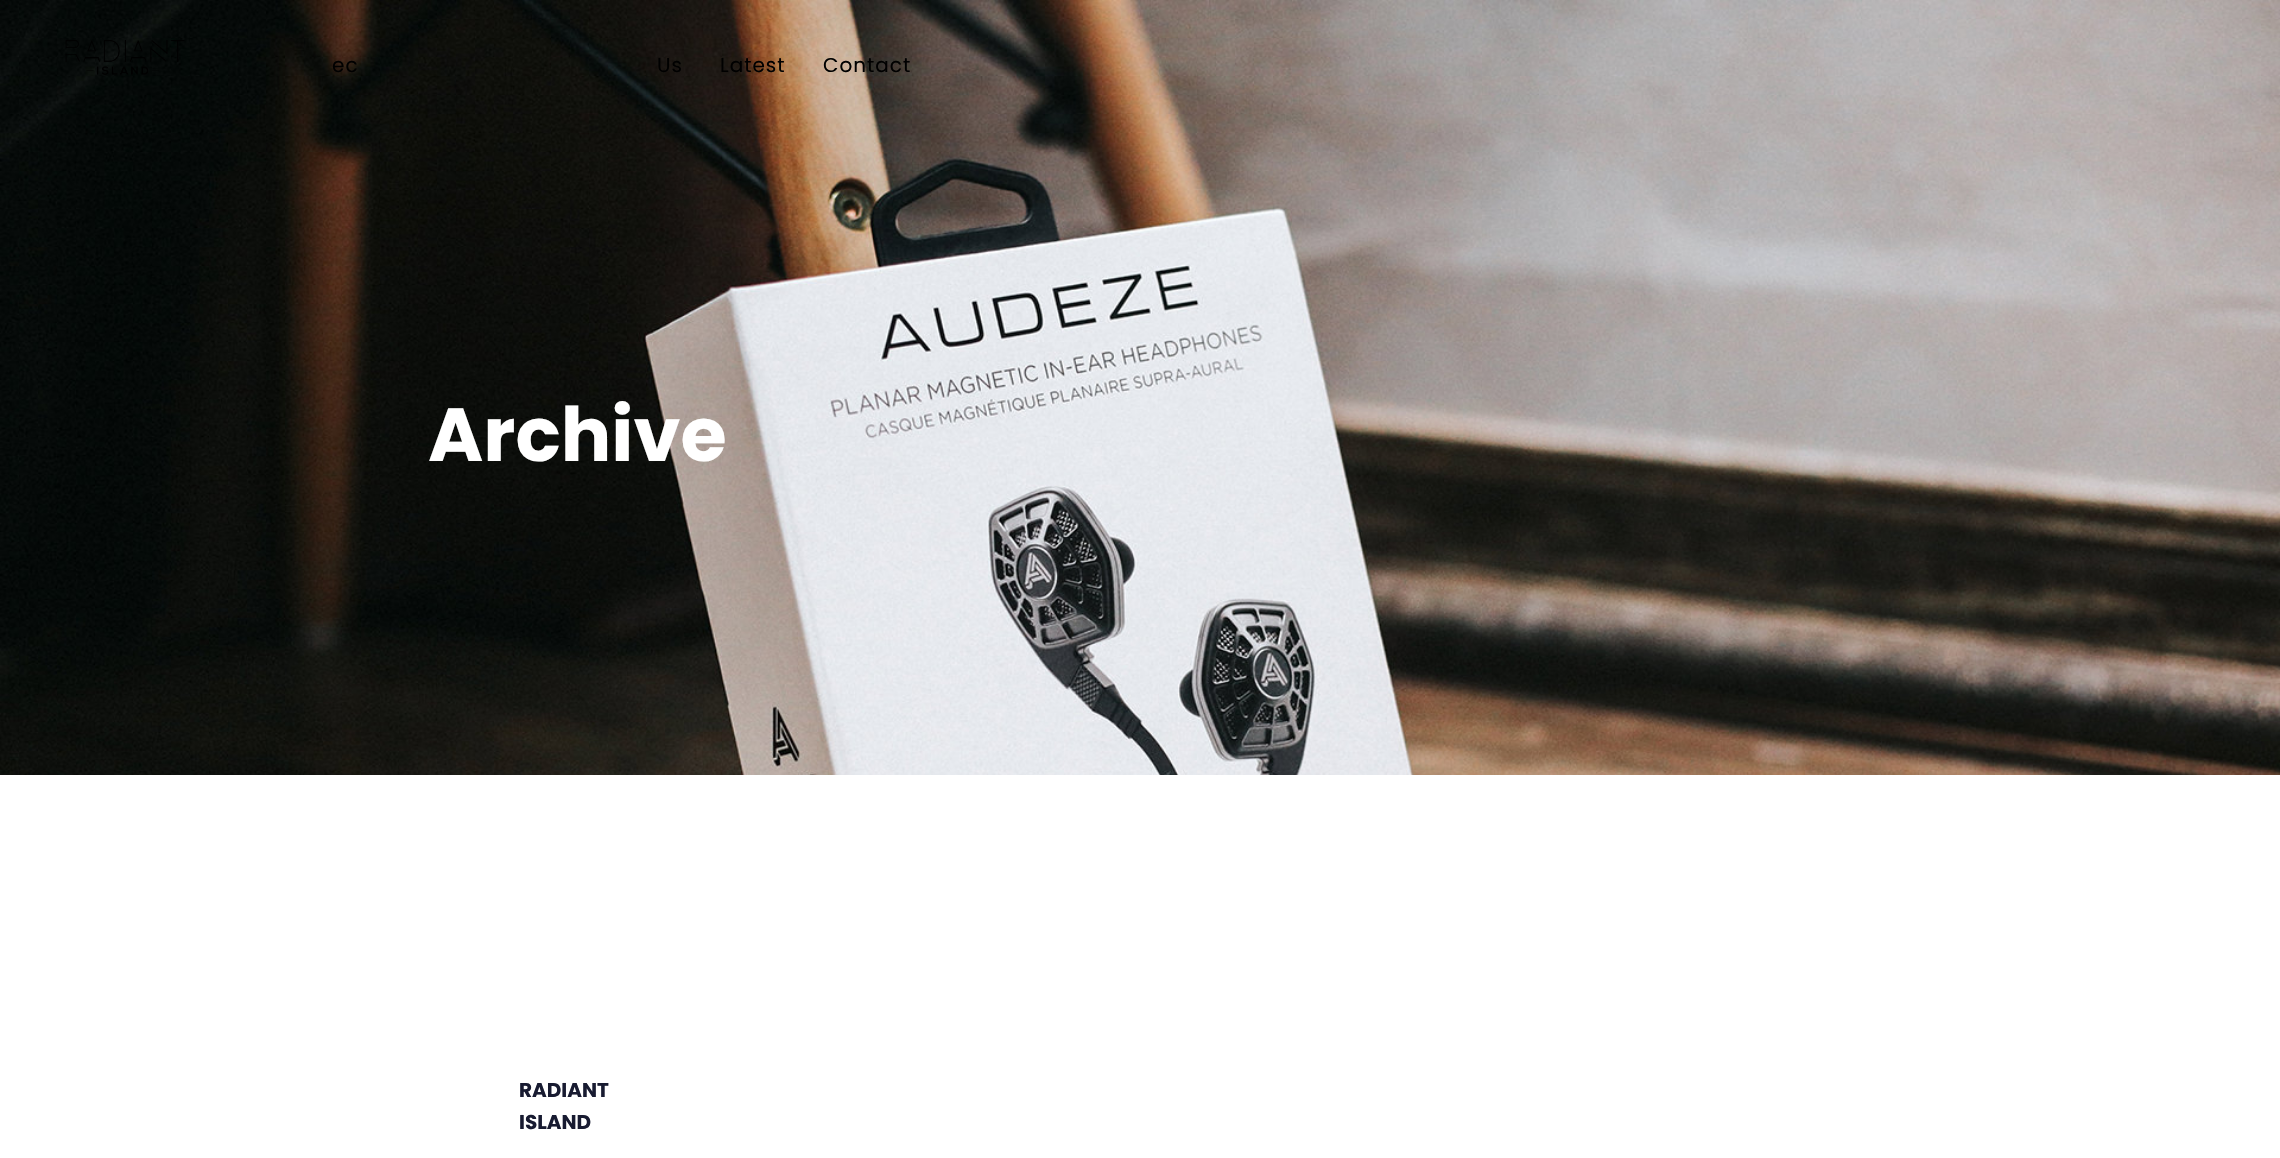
#include "include/core/SkBlurTypes.h"
#include "include/core/SkCanvas.h"
#include "include/core/SkData.h"
#include "include/core/SkFont.h"
#include "include/core/SkFontMgr.h"
#include "include/core/SkImage.h"
#include "include/core/SkMaskFilter.h"
#include "include/core/SkPaint.h"
#include "include/core/SkPathBuilder.h"
#include "include/core/SkTextBlob.h"
#include "include/effects/SkDashPathEffect.h"
#include "include/effects/SkGradientShader.h"
#include "include/utils/SkParsePath.h"

extern sk_sp<SkFontMgr> fontMgr;

void draw(SkCanvas* canvas) {
  SkPaint p;
  p.setAntiAlias(true);
  auto spacedText = [&](const char* s, float x, float y, const SkFont& font, const SkPaint& ink, float letter, float word) {
    std::vector<SkGlyphID> glyphs(font.countText(s, strlen(s), SkTextEncoding::kUTF8));
    std::vector<float> xs(glyphs.size());
    font.textToGlyphs(s, strlen(s), SkTextEncoding::kUTF8, glyphs);
    font.getXPos(glyphs, xs, x);
    float extra = 0;
    for (size_t i = 0; i < glyphs.size(); i++) {
      xs[i] += extra;
      extra += letter + word * (glyphs[i] == font.unicharToGlyph(' '));
    }
    canvas->drawTextBlob(SkTextBlob::MakeFromPosHGlyphs(glyphs, xs, y, font), 0, 0, ink);
  };
  canvas->clear(SK_ColorWHITE);
  canvas->drawImageRect(SkImages::DeferredFromEncodedData(SkData::MakeFromFileName("images/1.png")), SkRect::MakeLTRB(0, 0, 2280, 775), SkSamplingOptions());
  canvas->drawImageRect(SkImages::DeferredFromEncodedData(SkData::MakeFromFileName("images/2.png")), SkRect::MakeLTRB(65, 40, 185, 75), SkSamplingOptions());
  SkFont font1(fontMgr->matchFamilyStyle("Poppins", SkFontStyle::Normal()), 20);
  font1.setSubpixel(true);
  p.setColor(SK_ColorBLACK);
  spacedText("ec", 332, 72, font1, p, 1, 0);
  spacedText("Us", 657, 72, font1, p, 1, 0);
  spacedText("Latest", 720, 72, font1, p, 1, 0);
  spacedText("Contact", 823, 72, font1, p, 1, 0);
  SkFont font2(fontMgr->matchFamilyStyle("Poppins", SkFontStyle::Bold()), 75);
  font2.setSubpixel(true);
  p.setColor(SK_ColorWHITE);
  canvas->drawString("Archive", 428, 461, font2, p);
  SkFont font3(fontMgr->matchFamilyStyle("Poppins", SkFontStyle::Bold()), 20);
  font3.setSubpixel(true);
  p.setColor(SkColorSetRGB(24, 27, 49));
  canvas->drawString("RADIANT", 519, 1097, font3, p);
  canvas->drawString("ISLAND", 519, 1129, font3, p);
}
